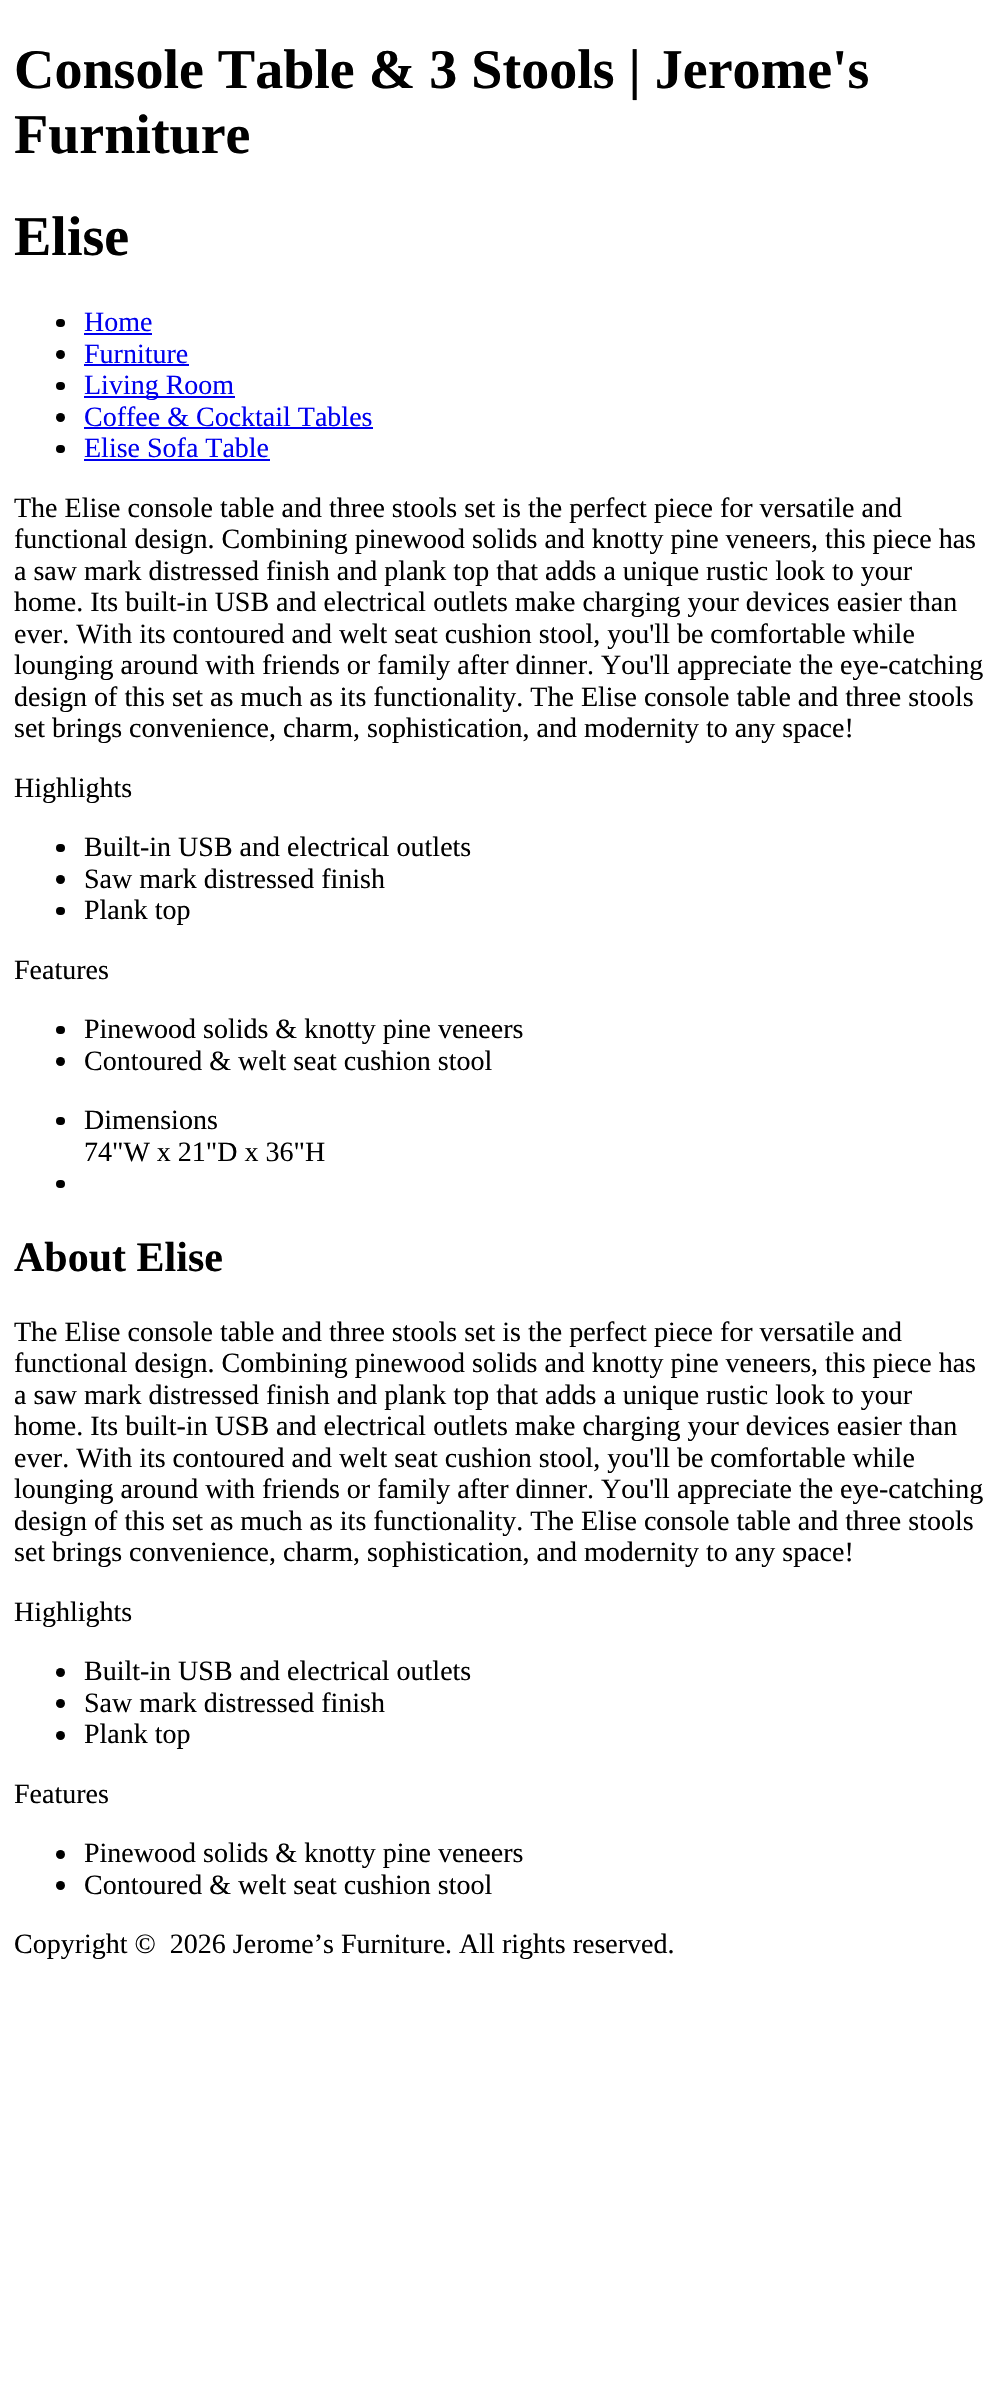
#include "include/core/SkBlurTypes.h"
#include "include/core/SkCanvas.h"
#include "include/core/SkData.h"
#include "include/core/SkFont.h"
#include "include/core/SkFontMgr.h"
#include "include/core/SkImage.h"
#include "include/core/SkMaskFilter.h"
#include "include/core/SkPaint.h"
#include "include/core/SkPathBuilder.h"
#include "include/core/SkTextBlob.h"
#include "include/effects/SkDashPathEffect.h"
#include "include/effects/SkGradientShader.h"
#include "include/utils/SkParsePath.h"

extern sk_sp<SkFontMgr> fontMgr;

void draw(SkCanvas* canvas) {
  SkPaint p;
  p.setAntiAlias(true);
  canvas->clear(SK_ColorWHITE);
  p.setColor(SK_ColorBLACK);
  canvas->drawRoundRect(SkRect::MakeLTRB(56, 319, 65, 327), 4, 4, p);
  p.setColor(SkColorSetRGB(0, 0, 238));
  canvas->drawRect(SkRect::MakeLTRB(84, 333, 152, 335), p);
  p.setColor(SK_ColorBLACK);
  canvas->drawCircle(60.5f, 354.5f, 4.5f, p);
  p.setColor(SkColorSetRGB(0, 0, 238));
  canvas->drawRect(SkRect::MakeLTRB(84, 364, 189, 366), p);
  p.setColor(SK_ColorBLACK);
  canvas->drawRoundRect(SkRect::MakeLTRB(56, 382, 65, 390), 4, 4, p);
  p.setColor(SkColorSetRGB(0, 0, 238));
  canvas->drawRect(SkRect::MakeLTRB(84, 396, 235, 398), p);
  p.setColor(SK_ColorBLACK);
  canvas->drawCircle(60.5f, 417.5f, 4.5f, p);
  p.setColor(SkColorSetRGB(0, 0, 238));
  canvas->drawRect(SkRect::MakeLTRB(84, 427, 373, 429), p);
  p.setColor(SK_ColorBLACK);
  canvas->drawRoundRect(SkRect::MakeLTRB(56, 445, 65, 453), 4, 4, p);
  p.setColor(SkColorSetRGB(0, 0, 238));
  canvas->drawRect(SkRect::MakeLTRB(84, 459, 270, 461), p);
  p.setColor(SK_ColorBLACK);
  canvas->drawRoundRect(SkRect::MakeLTRB(56, 844, 65, 852), 4, 4, p);
  canvas->drawCircle(60.5f, 879.5f, 4.5f, p);
  canvas->drawRoundRect(SkRect::MakeLTRB(56, 907, 65, 915), 4, 4, p);
  canvas->drawRoundRect(SkRect::MakeLTRB(56, 1026, 65, 1034), 4, 4, p);
  canvas->drawCircle(60.5f, 1061.5f, 4.5f, p);
  canvas->drawRoundRect(SkRect::MakeLTRB(56, 1117, 65, 1125), 4, 4, p);
  canvas->drawRoundRect(SkRect::MakeLTRB(56, 1180, 65, 1188), 4, 4, p);
  canvas->drawCircle(60.5f, 1672.5f, 4.5f, p);
  canvas->drawCircle(60.5f, 1703.5f, 4.5f, p);
  canvas->drawCircle(60.5f, 1735.5f, 4.5f, p);
  canvas->drawCircle(60.5f, 1854.5f, 4.5f, p);
  canvas->drawCircle(60.5f, 1885.5f, 4.5f, p);
  SkFont font1(fontMgr->matchFamilyStyle("Liberation Serif", SkFontStyle::Bold()), 56);
  font1.setSubpixel(true);
  canvas->drawString("Console Table & 3 Stools | Jerome's", 14, 88, font1, p);
  canvas->drawString("Furniture", 14, 153, font1, p);
  canvas->drawString("Elise", 14, 255, font1, p);
  SkFont font2(fontMgr->matchFamilyStyle("Liberation Serif", SkFontStyle::Normal()), 28);
  font2.setSubpixel(true);
  p.setColor(SkColorSetRGB(0, 0, 238));
  canvas->drawString("Home", 84, 331, font2, p);
  canvas->drawString("Furniture", 84, 363, font2, p);
  canvas->drawString("Living Room", 84, 394, font2, p);
  canvas->drawString("Coffee & Cocktail Tables", 84, 426, font2, p);
  canvas->drawString("Elise Sofa Table", 84, 457, font2, p);
  p.setColor(SK_ColorBLACK);
  canvas->drawString("The Elise console table and three stools set is the perfect piece for versatile and", 14, 517, font2, p);
  canvas->drawString("functional design. Combining pinewood solids and knotty pine veneers, this piece has", 14, 548, font2, p);
  canvas->drawString("a saw mark distressed finish and plank top that adds a unique rustic look to your", 14, 580, font2, p);
  canvas->drawString("home. Its built-in USB and electrical outlets make charging your devices easier than", 14, 611, font2, p);
  canvas->drawString("ever. With its contoured and welt seat cushion stool, you'll be comfortable while", 14, 643, font2, p);
  canvas->drawString("lounging around with friends or family after dinner. You'll appreciate the eye-catching", 14, 674, font2, p);
  canvas->drawString("design of this set as much as its functionality. The Elise console table and three stools", 14, 706, font2, p);
  canvas->drawString("set brings convenience, charm, sophistication, and modernity to any space!", 14, 737, font2, p);
  canvas->drawString("Highlights", 14, 797, font2, p);
  canvas->drawString("Built-in USB and electrical outlets", 84, 856, font2, p);
  canvas->drawString("Saw mark distressed finish", 84, 888, font2, p);
  canvas->drawString("Plank top", 84, 919, font2, p);
  canvas->drawString("Features", 14, 979, font2, p);
  canvas->drawString("Pinewood solids & knotty pine veneers", 84, 1038, font2, p);
  canvas->drawString("Contoured & welt seat cushion stool", 84, 1070, font2, p);
  canvas->drawString("Dimensions", 84, 1129, font2, p);
  canvas->drawString("74\"W x 21\"D x 36\"H", 84, 1161, font2, p);
  SkFont font3(fontMgr->matchFamilyStyle("Liberation Serif", SkFontStyle::Bold()), 42);
  font3.setSubpixel(true);
  canvas->drawString("About Elise", 14, 1271, font3, p);
  canvas->drawString("The Elise console table and three stools set is the perfect piece for versatile and", 14, 1341, font2, p);
  canvas->drawString("functional design. Combining pinewood solids and knotty pine veneers, this piece has", 14, 1372, font2, p);
  canvas->drawString("a saw mark distressed finish and plank top that adds a unique rustic look to your", 14, 1404, font2, p);
  canvas->drawString("home. Its built-in USB and electrical outlets make charging your devices easier than", 14, 1435, font2, p);
  canvas->drawString("ever. With its contoured and welt seat cushion stool, you'll be comfortable while", 14, 1467, font2, p);
  canvas->drawString("lounging around with friends or family after dinner. You'll appreciate the eye-catching", 14, 1498, font2, p);
  canvas->drawString("design of this set as much as its functionality. The Elise console table and three stools", 14, 1530, font2, p);
  canvas->drawString("set brings convenience, charm, sophistication, and modernity to any space!", 14, 1561, font2, p);
  canvas->drawString("Highlights", 14, 1621, font2, p);
  canvas->drawString("Built-in USB and electrical outlets", 84, 1680, font2, p);
  canvas->drawString("Saw mark distressed finish", 84, 1712, font2, p);
  canvas->drawString("Plank top", 84, 1743, font2, p);
  canvas->drawString("Features", 14, 1803, font2, p);
  canvas->drawString("Pinewood solids & knotty pine veneers", 84, 1862, font2, p);
  canvas->drawString("Contoured & welt seat cushion stool", 84, 1894, font2, p);
  canvas->drawString("Copyright ©  2026 Jerome’s Furniture. All rights reserved.", 14, 1953, font2, p);
}
